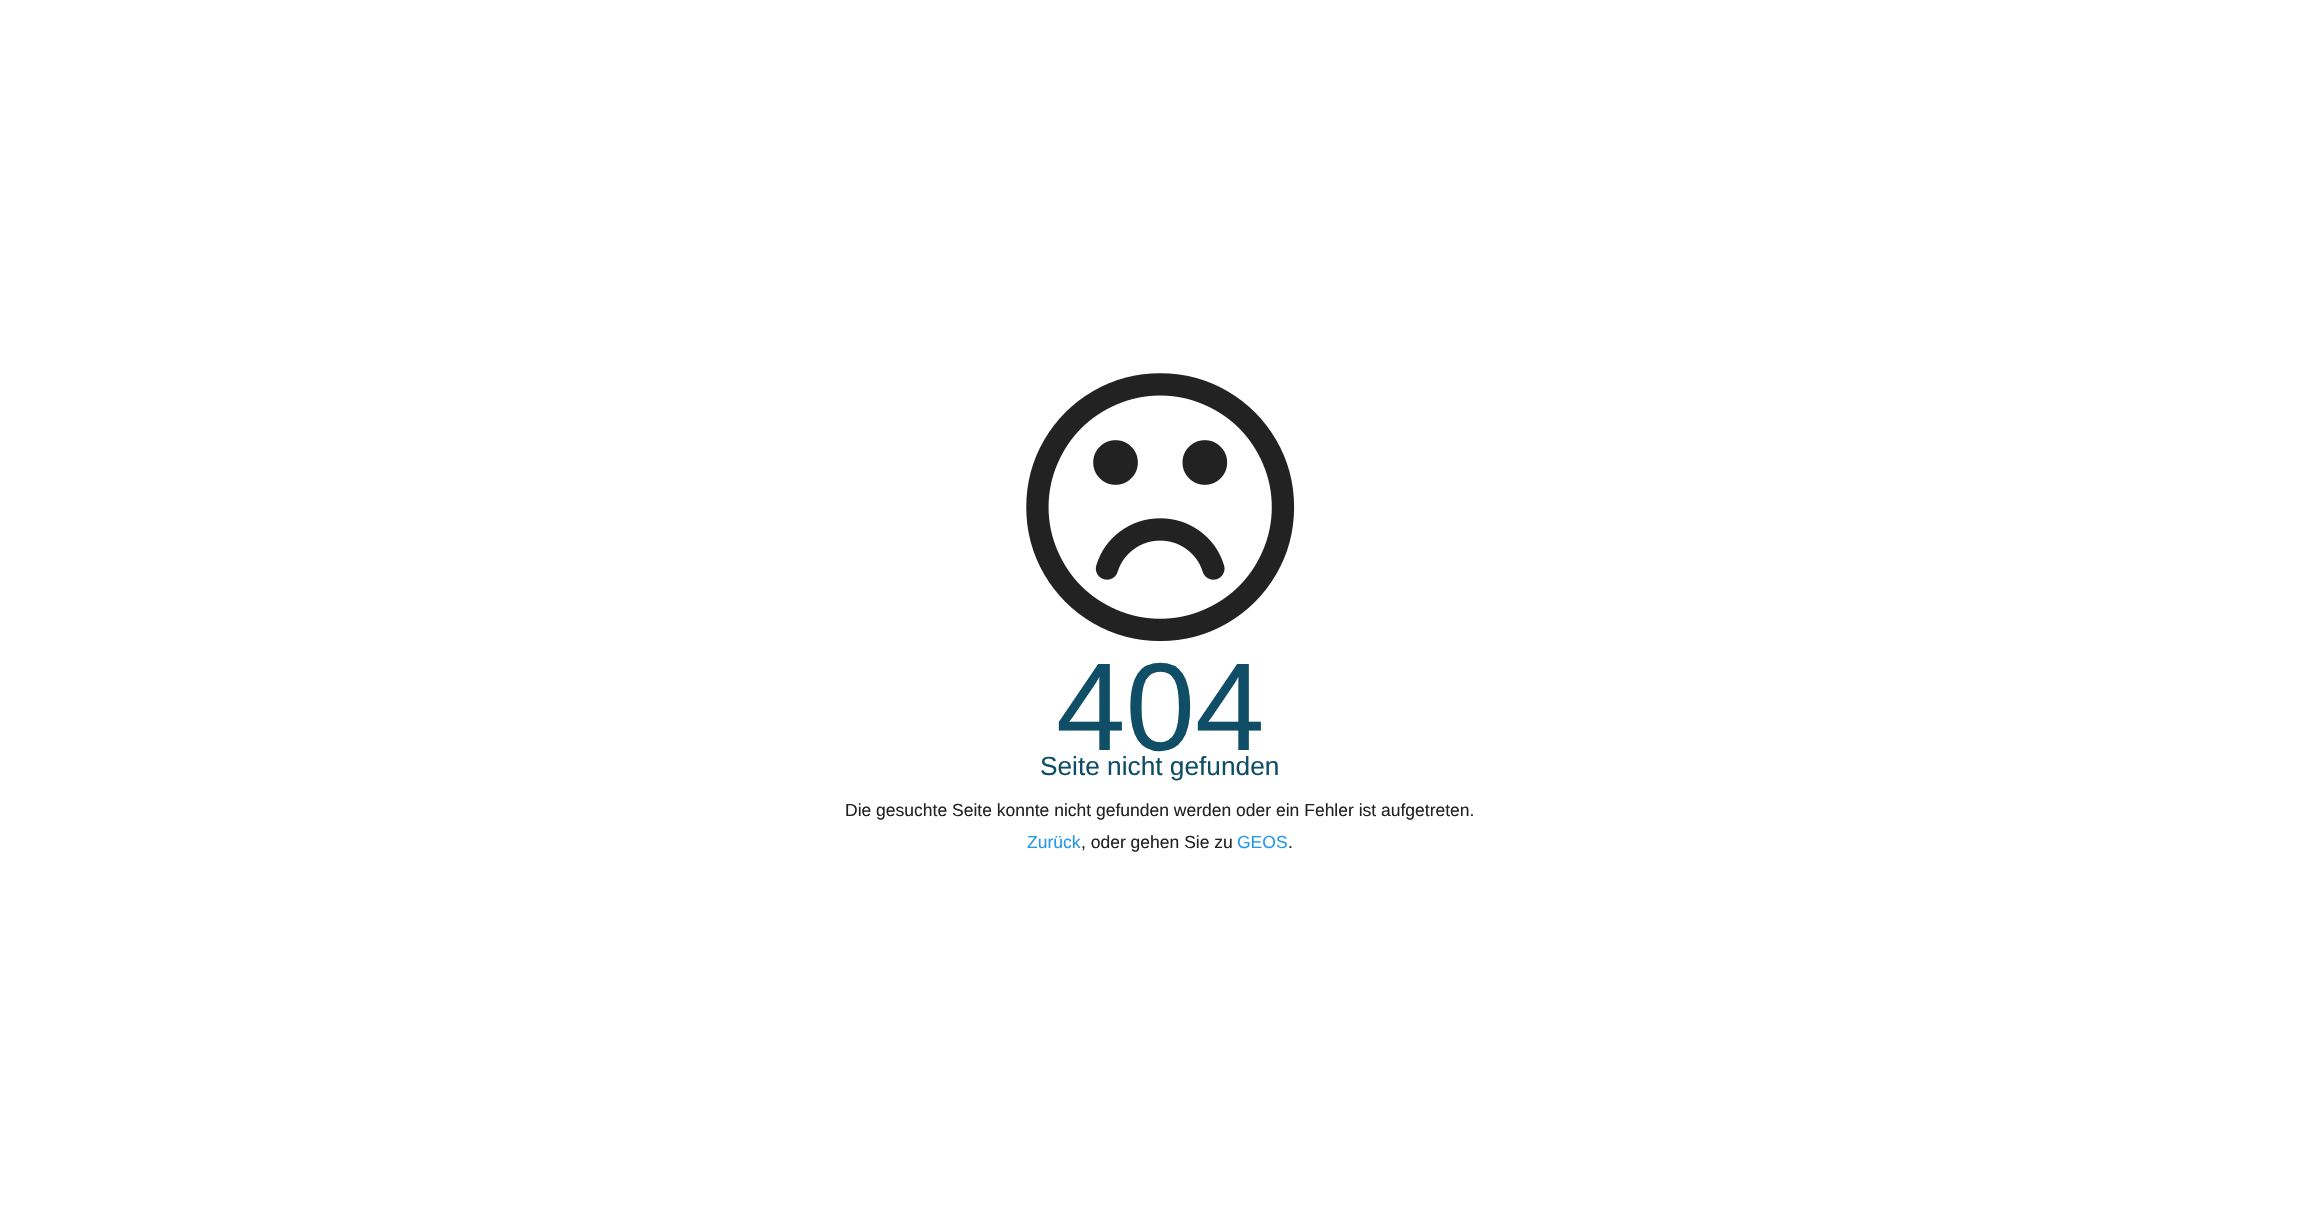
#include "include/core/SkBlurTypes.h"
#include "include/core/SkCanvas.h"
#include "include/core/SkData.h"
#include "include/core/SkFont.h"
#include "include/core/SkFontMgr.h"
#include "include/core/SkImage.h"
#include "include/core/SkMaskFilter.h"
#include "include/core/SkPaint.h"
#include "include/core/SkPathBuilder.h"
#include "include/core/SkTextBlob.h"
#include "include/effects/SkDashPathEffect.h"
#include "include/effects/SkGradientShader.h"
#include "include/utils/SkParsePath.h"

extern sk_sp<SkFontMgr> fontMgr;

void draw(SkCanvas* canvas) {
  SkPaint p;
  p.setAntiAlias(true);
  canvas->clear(SK_ColorWHITE);
  canvas->drawImageRect(SkImages::DeferredFromEncodedData(SkData::MakeFromFileName("images/1.png")), SkRect::MakeLTRB(1026, 373, 1295, 642), SkSamplingOptions());
  SkFont font1(fontMgr->matchFamilyStyle("Liberation Sans", SkFontStyle::Normal()), 125);
  font1.setSubpixel(true);
  p.setColor(SkColorSetRGB(15, 78, 102));
  canvas->drawString("404", 1056, 750, font1, p);
  SkFont font2(fontMgr->matchFamilyStyle("Liberation Sans", SkFontStyle::Normal()), 26.25f);
  font2.setSubpixel(true);
  canvas->drawString("Seite nicht gefunden", 1040, 775, font2, p);
  SkFont font3(fontMgr->matchFamilyStyle("Liberation Sans", SkFontStyle::Normal()), 17.5f);
  font3.setSubpixel(true);
  p.setColor(SkColorSetRGB(34, 34, 34));
  canvas->drawString("Die gesuchte Seite konnte nicht gefunden werden oder ein Fehler ist aufgetreten.", 845, 816, font3, p);
  p.setColor(SkColorSetRGB(34, 152, 233));
  canvas->drawString("Zurück", 1027, 848, font3, p);
  p.setColor(SkColorSetRGB(34, 34, 34));
  canvas->drawString(", oder gehen Sie zu", 1081, 848, font3, p);
  p.setColor(SkColorSetRGB(34, 152, 233));
  canvas->drawString("GEOS", 1237, 848, font3, p);
  p.setColor(SkColorSetRGB(34, 34, 34));
  canvas->drawString(".", 1288, 848, font3, p);
}
